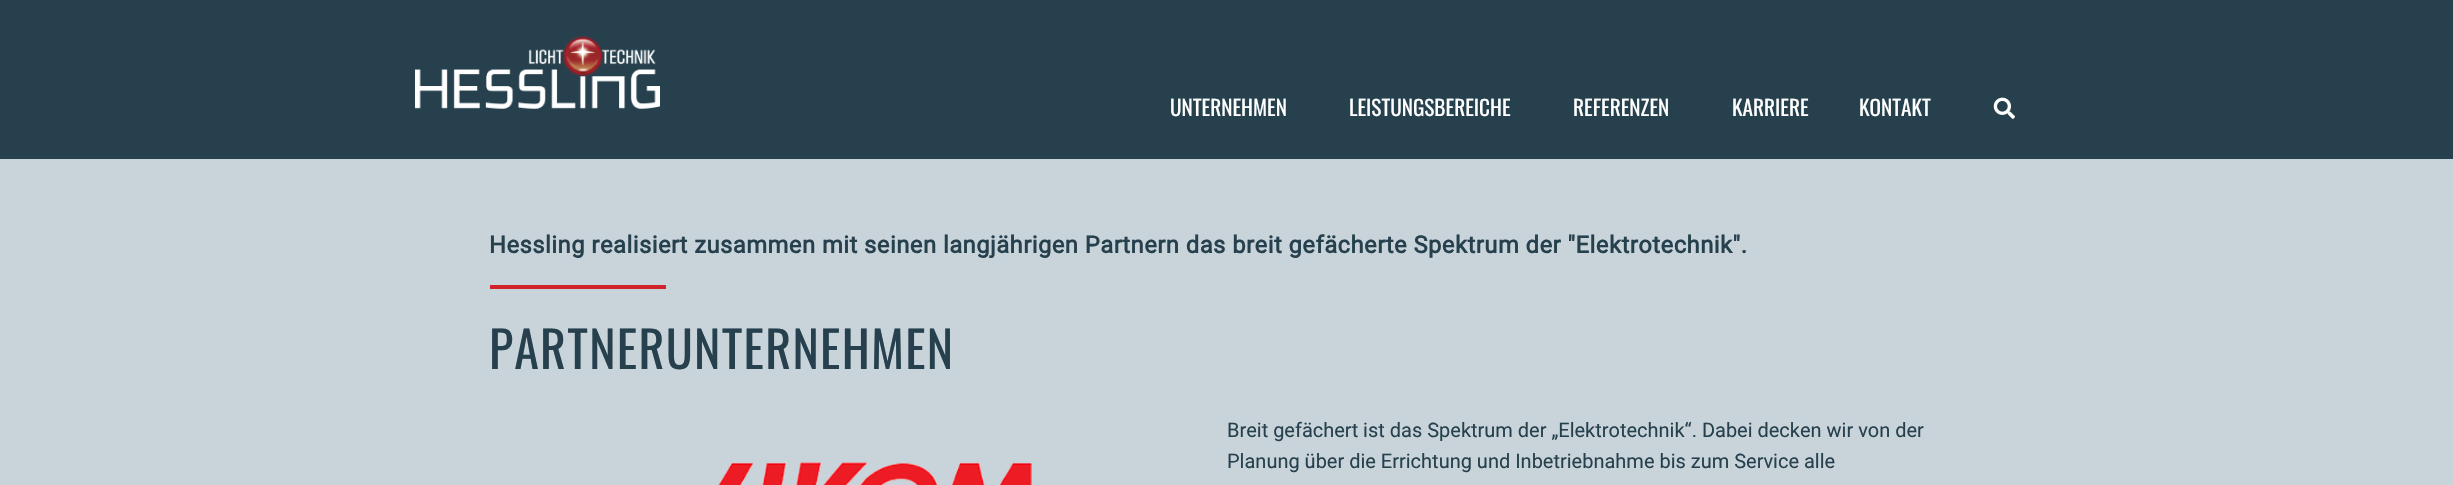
#include "include/core/SkBlurTypes.h"
#include "include/core/SkCanvas.h"
#include "include/core/SkData.h"
#include "include/core/SkFont.h"
#include "include/core/SkFontMgr.h"
#include "include/core/SkImage.h"
#include "include/core/SkMaskFilter.h"
#include "include/core/SkPaint.h"
#include "include/core/SkPathBuilder.h"
#include "include/core/SkTextBlob.h"
#include "include/effects/SkDashPathEffect.h"
#include "include/effects/SkGradientShader.h"
#include "include/utils/SkParsePath.h"

extern sk_sp<SkFontMgr> fontMgr;

void draw(SkCanvas* canvas) {
  SkPaint p;
  p.setAntiAlias(true);
  auto spacedText = [&](const char* s, float x, float y, const SkFont& font, const SkPaint& ink, float letter, float word) {
    std::vector<SkGlyphID> glyphs(font.countText(s, strlen(s), SkTextEncoding::kUTF8));
    std::vector<float> xs(glyphs.size());
    font.textToGlyphs(s, strlen(s), SkTextEncoding::kUTF8, glyphs);
    font.getXPos(glyphs, xs, x);
    float extra = 0;
    for (size_t i = 0; i < glyphs.size(); i++) {
      xs[i] += extra;
      extra += letter + word * (glyphs[i] == font.unicharToGlyph(' '));
    }
    canvas->drawTextBlob(SkTextBlob::MakeFromPosHGlyphs(glyphs, xs, y, font), 0, 0, ink);
  };
  canvas->clear(SkColorSetRGB(38, 65, 77));
  canvas->drawImageRect(SkImages::DeferredFromEncodedData(SkData::MakeFromFileName("images/1.png")), SkRect::MakeLTRB(415, 35, 660, 109), SkSamplingOptions());
  canvas->drawImageRect(SkImages::DeferredFromEncodedData(SkData::MakeFromFileName("images/2.png")), SkRect::MakeLTRB(1993, 97, 2015, 119), SkSamplingOptions());
  p.setColor(SkColorSetRGB(200, 211, 218));
  canvas->drawRect(SkRect::MakeLTRB(0, 159, 2453, 485), p);
  p.setColor(SkColorSetRGB(209, 35, 42));
  canvas->drawRect(SkRect::MakeLTRB(490, 285, 666, 289), p);
  canvas->drawImageRect(SkImages::DeferredFromEncodedData(SkData::MakeFromFileName("images/3.png")), SkRect::MakeLTRB(718, 462, 1032, 485), SkSamplingOptions());
  SkFont font1(fontMgr->matchFamilyStyle("Oswald", SkFontStyle::Normal()), 21.25f);
  font1.setSubpixel(true);
  p.setColor(SK_ColorWHITE);
  canvas->drawString("UNTERNEHMEN", 1170, 116, font1, p);
  canvas->drawString("LEISTUNGSBEREICHE", 1349, 116, font1, p);
  canvas->drawString("REFERENZEN", 1573, 116, font1, p);
  canvas->drawString("KARRIERE", 1732, 116, font1, p);
  canvas->drawString("KONTAKT", 1859, 116, font1, p);
  SkFont font2(fontMgr->matchFamilyStyle("Roboto", SkFontStyle::Bold()), 23.75f);
  font2.setSubpixel(true);
  p.setColor(SkColorSetRGB(38, 65, 77));
  spacedText("Hessling realisiert zusammen mit seinen langjährigen Partnern das breit gefächerte Spektrum der \"Elektrotechnik\".", 489, 253, font2, p, 0.5f, 0);
  SkFont font3(fontMgr->matchFamilyStyle("Oswald", SkFontStyle::Normal()), 50);
  font3.setSubpixel(true);
  spacedText("PARTNERUNTERNEHMEN", 489, 369, font3, p, 1.25f, 0);
  SkFont font4(fontMgr->matchFamilyStyle("Roboto", SkFontStyle::Normal()), 20);
  font4.setSubpixel(true);
  canvas->drawString("Breit gefächert ist das Spektrum der „Elektrotechnik“. Dabei decken wir von der", 1227, 437, font4, p);
  canvas->drawString("Planung über die Errichtung und Inbetriebnahme bis zum Service alle", 1227, 468, font4, p);
}
